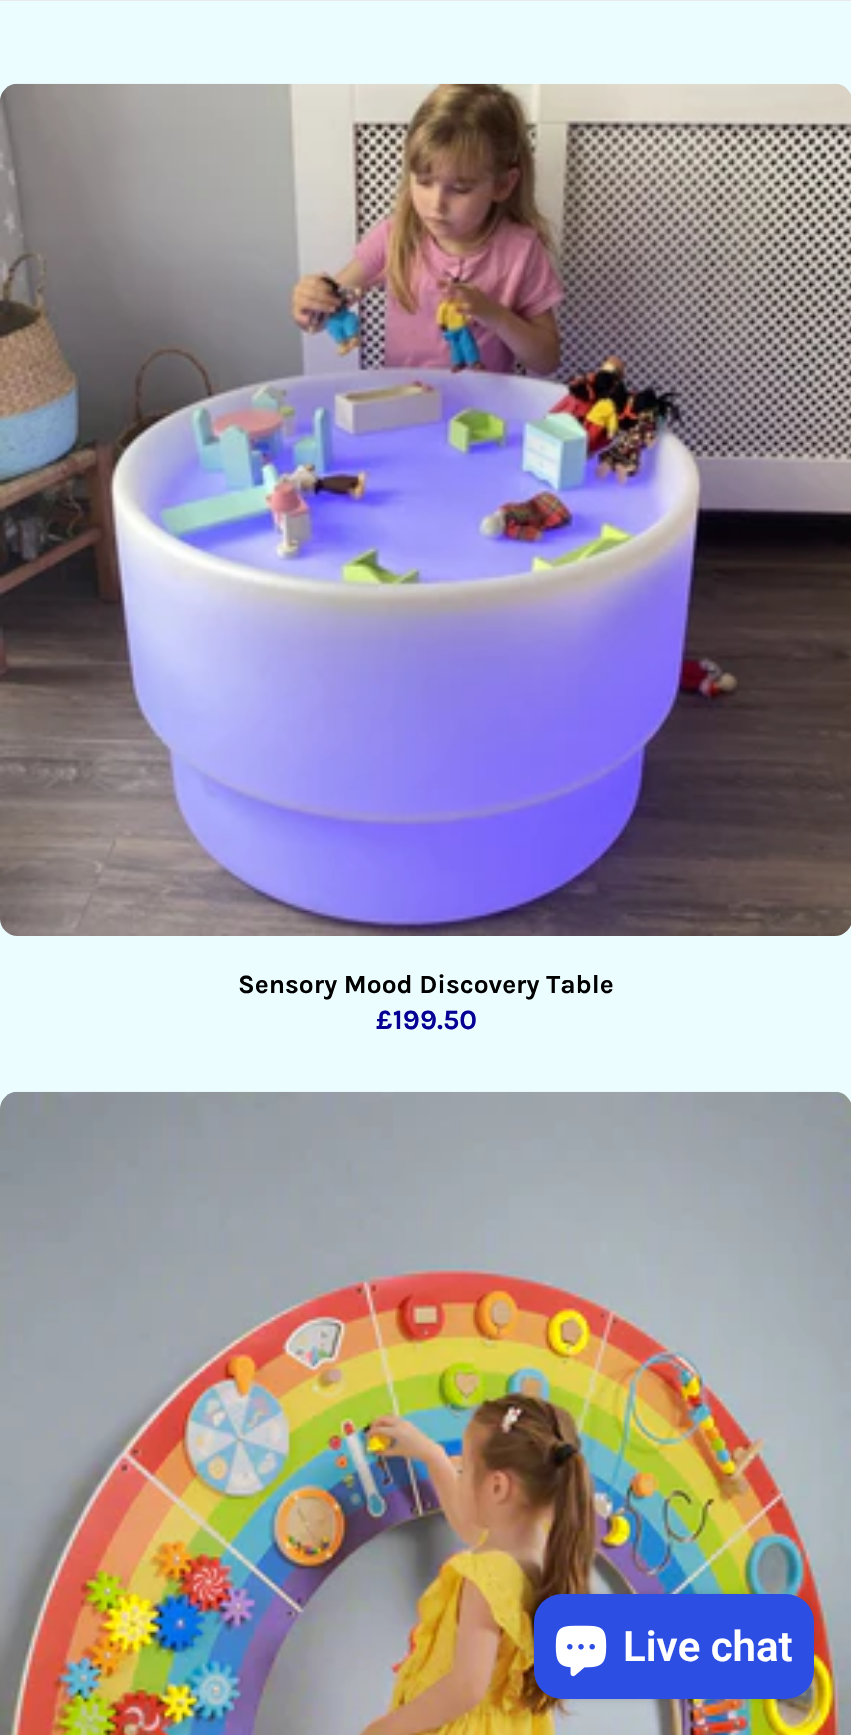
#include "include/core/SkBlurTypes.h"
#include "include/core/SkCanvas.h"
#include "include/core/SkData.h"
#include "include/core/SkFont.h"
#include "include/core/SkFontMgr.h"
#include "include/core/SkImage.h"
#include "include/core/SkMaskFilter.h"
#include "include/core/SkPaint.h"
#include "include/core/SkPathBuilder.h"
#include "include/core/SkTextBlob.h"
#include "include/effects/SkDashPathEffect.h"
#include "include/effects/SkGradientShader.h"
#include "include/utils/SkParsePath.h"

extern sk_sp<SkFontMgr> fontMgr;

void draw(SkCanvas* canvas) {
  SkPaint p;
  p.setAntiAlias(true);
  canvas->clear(SkColorSetRGB(236, 253, 255));
  p.setColor(SkColorSetRGB(232, 233, 235));
  canvas->drawRect(SkRect::MakeLTRB(0, 0, 851, 1), p);
  canvas->drawImageRect(SkImages::DeferredFromEncodedData(SkData::MakeFromFileName("images/1.png")), SkRect::MakeLTRB(0, 83, 851, 936), SkSamplingOptions());
  canvas->drawImageRect(SkImages::DeferredFromEncodedData(SkData::MakeFromFileName("images/2.png")), SkRect::MakeLTRB(0, 1091, 851, 1735), SkSamplingOptions());
  p.setColor(SkColorSetARGB(38, 0, 0, 0));
  p.setMaskFilter(SkMaskFilter::MakeBlur(kNormal_SkBlurStyle, 4.5f));
  canvas->drawRoundRect(SkRect::MakeLTRB(534, 1594, 814, 1699), 28, 28, p);
  p.setMaskFilter(nullptr);
  p.setColor(SkColorSetRGB(45, 78, 226));
  canvas->drawRoundRect(SkRect::MakeLTRB(534, 1594, 814, 1699), 28, 28, p);
  canvas->drawImageRect(SkImages::DeferredFromEncodedData(SkData::MakeFromFileName("images/3.png")), SkRect::MakeLTRB(555, 1625, 607, 1677), SkSamplingOptions());
  SkFont font1(fontMgr->matchFamilyStyle("Karla", SkFontStyle::Bold()), 26.25f);
  font1.setSubpixel(true);
  p.setColor(SK_ColorBLACK);
  canvas->drawString("Sensory Mood Discovery Table", 238, 993, font1, p);
  SkFont font2(fontMgr->matchFamilyStyle("Karla", SkFontStyle::Bold()), 28);
  font2.setSubpixel(true);
  p.setColor(SkColorSetRGB(7, 0, 148));
  canvas->drawString("£199.50", 376, 1029, font2, p);
  SkFont font3(fontMgr->matchFamilyStyle("Roboto", SkFontStyle(600, SkFontStyle::kNormal_Width, SkFontStyle::kUpright_Slant)), 42);
  font3.setSubpixel(true);
  p.setColor(SK_ColorWHITE);
  canvas->drawString("Live chat", 623, 1661, font3, p);
}
